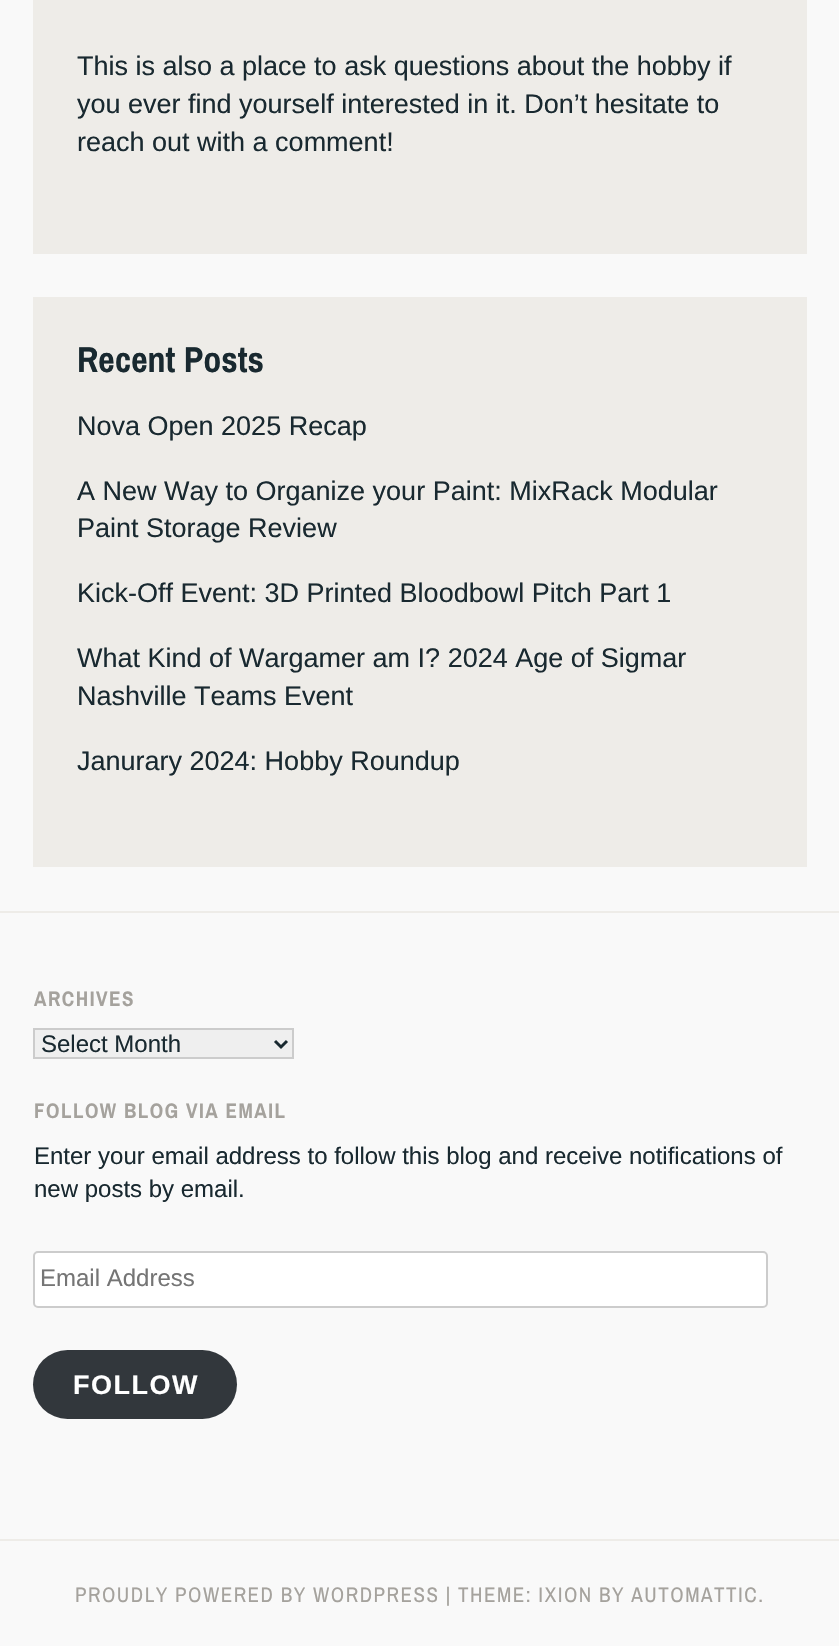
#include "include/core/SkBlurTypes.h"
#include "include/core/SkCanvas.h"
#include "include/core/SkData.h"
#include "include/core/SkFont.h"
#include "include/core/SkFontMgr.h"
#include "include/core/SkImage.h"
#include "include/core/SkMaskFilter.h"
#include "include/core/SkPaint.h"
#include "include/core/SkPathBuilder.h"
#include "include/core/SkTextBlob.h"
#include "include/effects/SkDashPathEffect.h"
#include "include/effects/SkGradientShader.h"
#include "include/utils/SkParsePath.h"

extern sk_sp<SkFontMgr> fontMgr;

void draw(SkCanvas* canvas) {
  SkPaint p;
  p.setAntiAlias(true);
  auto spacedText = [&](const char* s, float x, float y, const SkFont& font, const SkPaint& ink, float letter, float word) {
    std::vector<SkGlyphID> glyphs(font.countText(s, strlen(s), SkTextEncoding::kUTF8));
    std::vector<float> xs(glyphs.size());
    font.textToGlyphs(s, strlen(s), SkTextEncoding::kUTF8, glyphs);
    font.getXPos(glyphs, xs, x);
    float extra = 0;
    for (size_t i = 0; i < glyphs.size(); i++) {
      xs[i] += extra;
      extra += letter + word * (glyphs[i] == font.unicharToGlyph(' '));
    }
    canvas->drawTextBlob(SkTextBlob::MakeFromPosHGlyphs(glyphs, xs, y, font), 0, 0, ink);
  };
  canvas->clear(SkColorSetRGB(249, 249, 249));
  p.setColor(SkColorSetRGB(238, 236, 232));
  canvas->drawRect(SkRect::MakeLTRB(33, 0, 807, 254), p);
  canvas->drawRect(SkRect::MakeLTRB(33, 297, 807, 867), p);
  canvas->drawRect(SkRect::MakeLTRB(0, 911, 839, 913), p);
  p.setColor(SkColorSetRGB(239, 239, 239));
  canvas->drawRect(SkRect::MakeLTRB(34, 1029, 293, 1058), p);
  p.setStyle(SkPaint::kStroke_Style);
  p.setStrokeWidth(2);
  p.setColor(SkColorSetRGB(204, 204, 204));
  canvas->drawRect(SkRect::MakeLTRB(34, 1029, 293, 1058), p);
  p.setStrokeWidth(3);
  p.setColor(SkColorSetRGB(25, 41, 48));
  canvas->drawPath(SkPathBuilder().moveTo(275, 1041).lineTo(281, 1047).lineTo(287, 1041).detach(), p);
  p.setStyle(SkPaint::kFill_Style);
  p.setColor(SK_ColorWHITE);
  canvas->drawRoundRect(SkRect::MakeLTRB(34, 1252, 767, 1307), 4, 4, p);
  p.setStyle(SkPaint::kStroke_Style);
  p.setStrokeWidth(2);
  p.setColor(SkColorSetRGB(204, 204, 204));
  canvas->drawRoundRect(SkRect::MakeLTRB(34, 1252, 767, 1307), 4, 4, p);
  p.setStyle(SkPaint::kFill_Style);
  p.setColor(SkColorSetRGB(50, 55, 60));
  canvas->drawRoundRect(SkRect::MakeLTRB(33, 1350, 237, 1419), 34.5f, 34.5f, p);
  p.setColor(SkColorSetRGB(238, 236, 232));
  canvas->drawRect(SkRect::MakeLTRB(0, 1539, 839, 1541), p);
  SkFont font1(fontMgr->matchFamilyStyle("Liberation Sans", SkFontStyle::Normal()), 27);
  font1.setSubpixel(true);
  p.setColor(SkColorSetRGB(25, 41, 48));
  canvas->drawString("This is also a place to ask questions about the hobby if", 77, 75, font1, p);
  canvas->drawString("you ever find yourself interested in it. Don’t hesitate to", 77, 113, font1, p);
  canvas->drawString("reach out with a comment!", 77, 151, font1, p);
  SkFont font2(fontMgr->matchFamilyStyle("Archivo Narrow", SkFontStyle::Bold()), 36);
  font2.setSubpixel(true);
  canvas->drawString("Recent Posts", 77, 372, font2, p);
  canvas->drawString("Nova Open 2025 Recap", 77, 435, font1, p);
  canvas->drawString("A New Way to Organize your Paint: MixRack Modular", 77, 500, font1, p);
  canvas->drawString("Paint Storage Review", 77, 537, font1, p);
  canvas->drawString("Kick-Off Event: 3D Printed Bloodbowl Pitch Part 1", 77, 602, font1, p);
  canvas->drawString("What Kind of Wargamer am I? 2024 Age of Sigmar", 77, 667, font1, p);
  canvas->drawString("Nashville Teams Event", 77, 705, font1, p);
  canvas->drawString("Janurary 2024: Hobby Roundup", 77, 770, font1, p);
  SkFont font3(fontMgr->matchFamilyStyle("Archivo Narrow", SkFontStyle::Bold()), 21);
  font3.setSubpixel(true);
  p.setColor(SkColorSetRGB(165, 162, 157));
  spacedText("ARCHIVES", 34, 1006, font3, p, 1.5f, 0);
  SkFont font4(fontMgr->matchFamilyStyle("Liberation Sans", SkFontStyle::Normal()), 24);
  font4.setSubpixel(true);
  p.setColor(SkColorSetRGB(25, 41, 48));
  canvas->drawString("Select Month", 41, 1052, font4, p);
  p.setColor(SkColorSetRGB(165, 162, 157));
  spacedText("FOLLOW BLOG VIA EMAIL", 34, 1118, font3, p, 1.5f, 0);
  p.setColor(SkColorSetRGB(25, 41, 48));
  canvas->drawString("Enter your email address to follow this blog and receive notifications of", 34, 1164, font4, p);
  canvas->drawString("new posts by email.", 34, 1197, font4, p);
  p.setColor(SkColorSetRGB(117, 117, 117));
  canvas->drawString("Email Address", 40, 1286, font4, p);
  SkFont font5(fontMgr->matchFamilyStyle("Liberation Sans", SkFontStyle::Bold()), 27);
  font5.setSubpixel(true);
  p.setColor(SK_ColorWHITE);
  spacedText("FOLLOW", 73, 1394, font5, p, 1.5f, 0);
  SkFont font6(fontMgr->matchFamilyStyle("Archivo Narrow", SkFontStyle::Normal()), 21);
  font6.setSubpixel(true);
  p.setColor(SkColorSetRGB(165, 162, 157));
  spacedText("PROUDLY POWERED BY WORDPRESS | THEME: IXION BY AUTOMATTIC.", 75, 1602, font6, p, 1.5f, 0);
}
